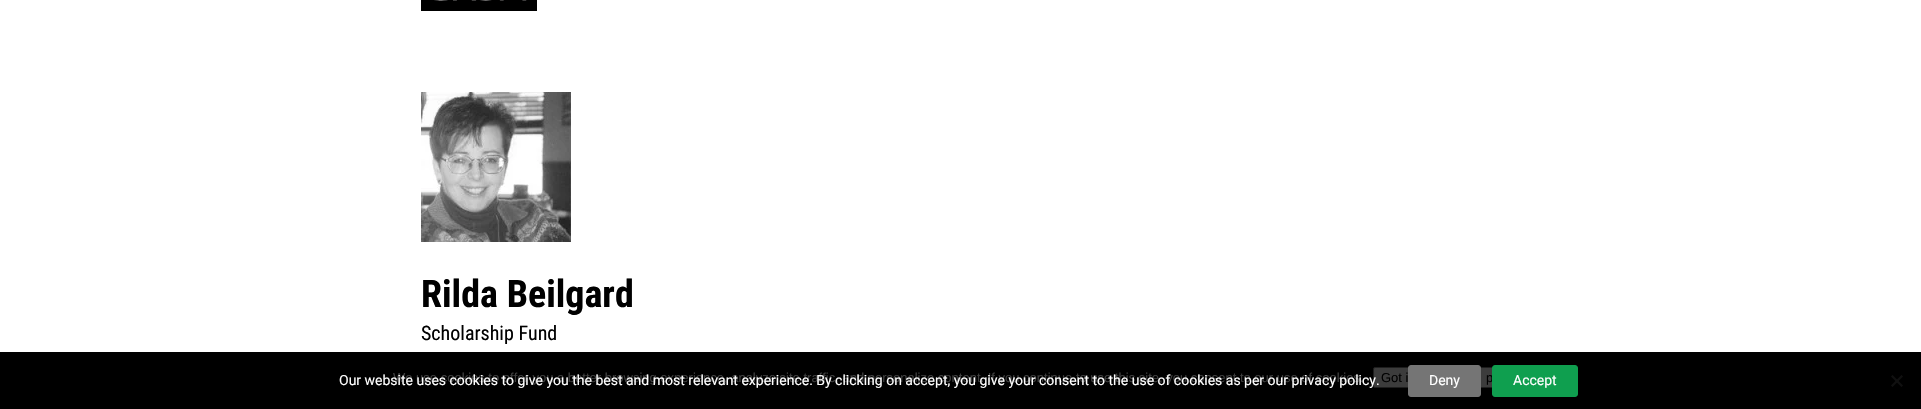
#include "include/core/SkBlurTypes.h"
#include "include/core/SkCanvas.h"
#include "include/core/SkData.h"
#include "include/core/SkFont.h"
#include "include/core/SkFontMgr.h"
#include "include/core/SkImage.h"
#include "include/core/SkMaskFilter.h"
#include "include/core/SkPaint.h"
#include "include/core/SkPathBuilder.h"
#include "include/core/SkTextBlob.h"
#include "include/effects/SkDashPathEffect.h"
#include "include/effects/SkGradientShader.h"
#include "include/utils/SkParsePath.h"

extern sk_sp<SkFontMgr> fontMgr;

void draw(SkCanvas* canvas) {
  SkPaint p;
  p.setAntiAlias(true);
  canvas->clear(SK_ColorWHITE);
  p.setColor(SK_ColorBLACK);
  canvas->drawRect(SkRect::MakeLTRB(421, 0, 537, 11), p);
  canvas->drawImageRect(SkImages::DeferredFromEncodedData(SkData::MakeFromFileName("images/1.png")), SkRect::MakeLTRB(434, 0, 527, 1), SkSamplingOptions());
  canvas->drawImageRect(SkImages::DeferredFromEncodedData(SkData::MakeFromFileName("images/2.png")), SkRect::MakeLTRB(421, 92, 571, 242), SkSamplingOptions());
  canvas->drawRect(SkRect::MakeLTRB(0, 352, 1921, 409), p);
  p.setColor(SkColorSetRGB(60, 60, 60));
  canvas->drawRoundRect(SkRect::MakeLTRB(1373.5f, 367.5f, 1420.5f, 387.5f), 1.5f, 1.5f, p);
  p.setStyle(SkPaint::kStroke_Style);
  p.setStrokeWidth(1);
  p.setColor(SkColorSetRGB(30, 30, 30));
  canvas->drawRoundRect(SkRect::MakeLTRB(1373.5f, 367.5f, 1420.5f, 387.5f), 1.5f, 1.5f, p);
  p.setStyle(SkPaint::kFill_Style);
  p.setColor(SkColorSetRGB(60, 60, 60));
  canvas->drawRect(SkRect::MakeLTRB(1481, 368, 1492, 387), p);
  p.setStyle(SkPaint::kStroke_Style);
  p.setColor(SkColorSetRGB(30, 30, 30));
  canvas->drawRect(SkRect::MakeLTRB(1431.5f, 367.5f, 1527.5f, 387.5f), p);
  p.setStyle(SkPaint::kFill_Style);
  p.setColor(SkColorSetRGB(16, 16, 16));
  canvas->drawPath(SkPathBuilder().moveTo(1901.5f, 375).lineTo(1903, 376.5f).lineTo(1892.5f, 387).lineTo(1891, 385.5f).close().detach(), p);
  canvas->drawPath(SkPathBuilder().moveTo(1891, 376.5f).lineTo(1892.5f, 375).lineTo(1903, 385.5f).lineTo(1901.5f, 387).close().detach(), p);
  SkFont font1(fontMgr->matchFamilyStyle("Roboto Condensed", SkFontStyle::Bold()), 38);
  font1.setSubpixel(true);
  p.setColor(SK_ColorBLACK);
  canvas->drawString("Rilda Beilgard", 421, 307, font1, p);
  SkFont font2(fontMgr->matchFamilyStyle("Roboto Condensed", SkFontStyle::Normal()), 20);
  font2.setSubpixel(true);
  canvas->drawString("Scholarship Fund", 421, 340, font2, p);
  SkFont font3(fontMgr->matchFamilyStyle("Liberation Sans", SkFontStyle::Normal()), 13);
  font3.setSubpixel(true);
  p.setColor(SkColorSetRGB(64, 64, 64));
  canvas->drawString("We use cookies to offer you a better browsing experience, analyze site traffic, and personalize content. If you continue to use this site, you consent to our use of cookies.", 393, 382, font3, p);
  p.setColor(SK_ColorBLACK);
  canvas->drawString("Got i", 1381, 382, font3, p);
  canvas->drawString("p", 1486, 382, font3, p);
  SkFont font4(fontMgr->matchFamilyStyle("Roboto", SkFontStyle::Normal()), 14);
  font4.setSubpixel(true);
  p.setColor(SK_ColorWHITE);
  canvas->drawString("Our website uses cookies to give you the best and most relevant experience. By clicking on accept, you give your consent to the use of cookies as per our privacy policy.", 339, 385, font4, p);
  p.setColor(SkColorSetRGB(117, 117, 117));
  canvas->drawRoundRect(SkRect::MakeLTRB(1408.5f, 365.5f, 1480.5f, 396.5f), 2.5f, 2.5f, p);
  p.setStyle(SkPaint::kStroke_Style);
  canvas->drawRoundRect(SkRect::MakeLTRB(1408.5f, 365.5f, 1480.5f, 396.5f), 2.5f, 2.5f, p);
  p.setStyle(SkPaint::kFill_Style);
  p.setColor(SK_ColorWHITE);
  canvas->drawString("Deny", 1429, 385, font4, p);
  p.setColor(SkColorSetRGB(15, 159, 79));
  canvas->drawRoundRect(SkRect::MakeLTRB(1492.5f, 365.5f, 1577.5f, 396.5f), 2.5f, 2.5f, p);
  p.setStyle(SkPaint::kStroke_Style);
  canvas->drawRoundRect(SkRect::MakeLTRB(1492.5f, 365.5f, 1577.5f, 396.5f), 2.5f, 2.5f, p);
  p.setStyle(SkPaint::kFill_Style);
  p.setColor(SK_ColorWHITE);
  canvas->drawString("Accept", 1513, 385, font4, p);
}
